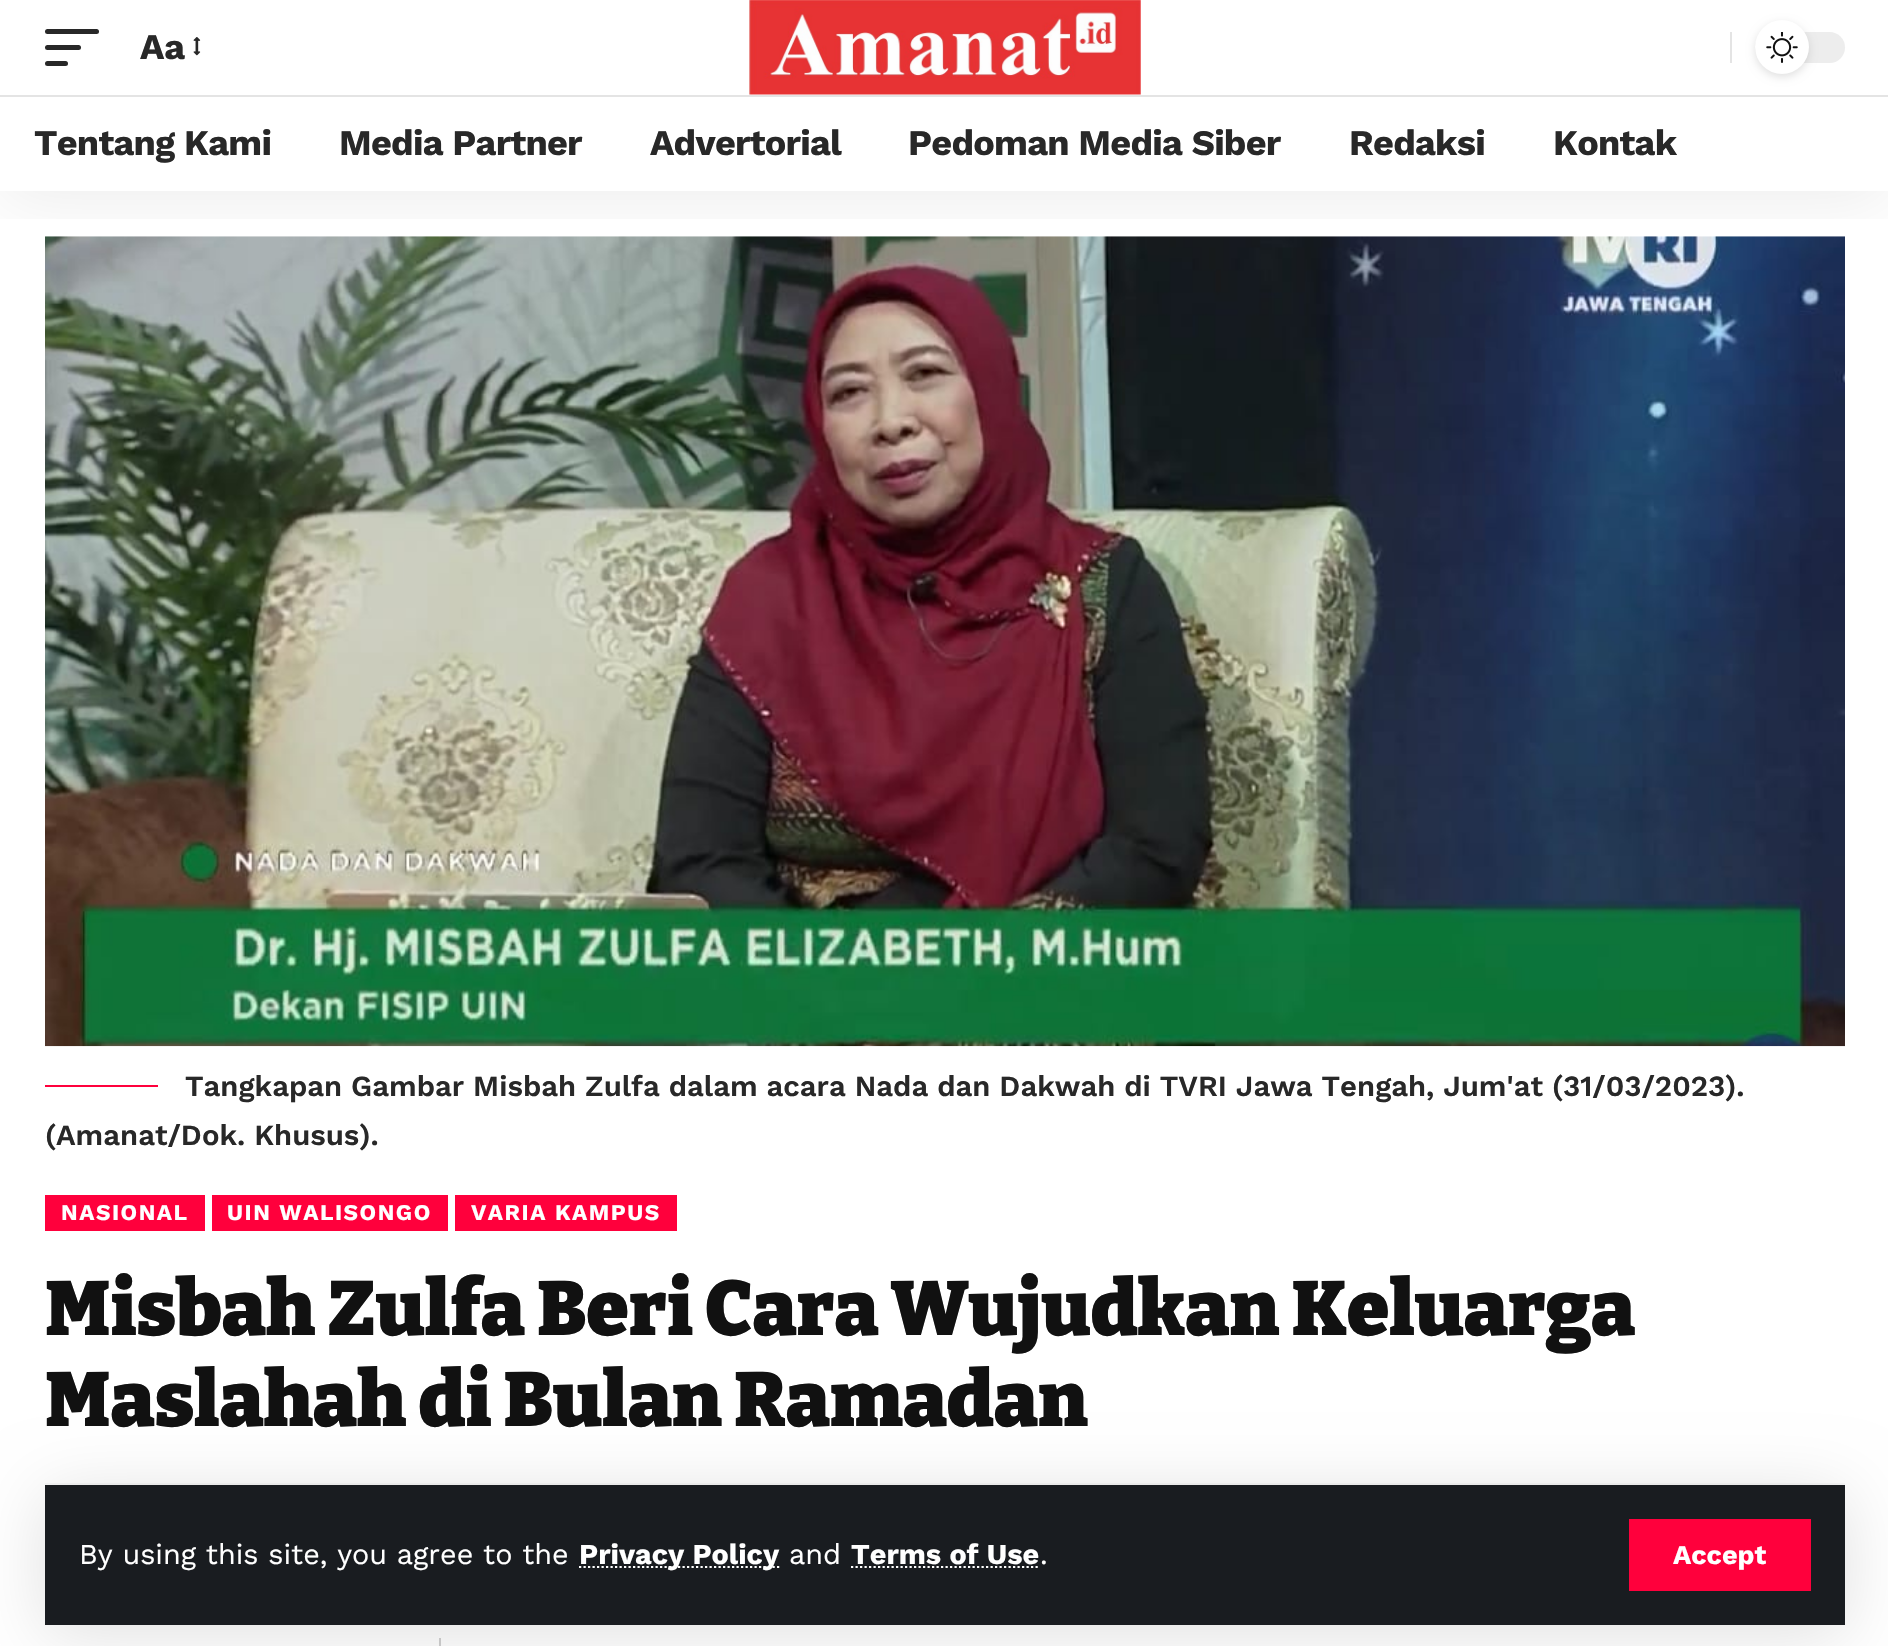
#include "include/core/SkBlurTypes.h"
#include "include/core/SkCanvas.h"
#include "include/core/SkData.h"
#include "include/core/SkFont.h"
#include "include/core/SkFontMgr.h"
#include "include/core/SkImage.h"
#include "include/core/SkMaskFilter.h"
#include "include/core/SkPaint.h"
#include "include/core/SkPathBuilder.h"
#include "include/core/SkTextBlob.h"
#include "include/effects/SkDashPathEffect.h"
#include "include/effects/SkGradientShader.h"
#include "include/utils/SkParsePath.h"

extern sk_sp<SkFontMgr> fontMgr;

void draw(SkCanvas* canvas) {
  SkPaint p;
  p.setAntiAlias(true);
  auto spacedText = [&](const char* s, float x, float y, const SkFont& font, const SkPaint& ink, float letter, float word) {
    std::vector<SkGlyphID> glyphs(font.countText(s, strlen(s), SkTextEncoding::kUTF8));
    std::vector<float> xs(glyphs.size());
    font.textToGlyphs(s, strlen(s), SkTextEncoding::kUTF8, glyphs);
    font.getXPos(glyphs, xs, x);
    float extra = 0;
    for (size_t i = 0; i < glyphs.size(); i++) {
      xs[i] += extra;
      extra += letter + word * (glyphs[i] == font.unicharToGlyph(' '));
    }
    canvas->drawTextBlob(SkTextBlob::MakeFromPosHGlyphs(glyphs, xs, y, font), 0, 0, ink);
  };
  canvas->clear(SK_ColorWHITE);
  canvas->drawImageRect(SkImages::DeferredFromEncodedData(SkData::MakeFromFileName("images/4.png")), SkRect::MakeLTRB(45, 236, 1845, 1047), SkSamplingOptions());
  canvas->save();
  canvas->clipRect(SkRect::MakeLTRB(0, 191, 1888, 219));
  p.setColor(SkColorSetARGB(18, 0, 0, 0));
  p.setMaskFilter(SkMaskFilter::MakeBlur(kNormal_SkBlurStyle, 34));
  canvas->drawRect(SkRect::MakeLTRB(0, 9, 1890, 200), p);
  p.setMaskFilter(nullptr);
  canvas->restore();
  p.setColor(SkColorSetRGB(40, 40, 40));
  canvas->drawRoundRect(SkRect::MakeLTRB(45, 29, 99, 34), 2.5f, 2.5f, p);
  canvas->drawRoundRect(SkRect::MakeLTRB(45, 45, 81, 50), 2.5f, 2.5f, p);
  canvas->drawRoundRect(SkRect::MakeLTRB(45, 61, 68, 66), 2.5f, 2.5f, p);
  canvas->drawImageRect(SkImages::DeferredFromEncodedData(SkData::MakeFromFileName("images/1.png")), SkRect::MakeLTRB(193, 37, 201, 56), SkSamplingOptions());
  canvas->drawImageRect(SkImages::DeferredFromEncodedData(SkData::MakeFromFileName("images/2.png")), SkRect::MakeLTRB(749, 0, 1141, 95), SkSamplingOptions());
  p.setColor(SkColorSetRGB(228, 228, 228));
  canvas->drawRect(SkRect::MakeLTRB(1730, 32, 1732, 63), p);
  p.setColor(SkColorSetRGB(237, 237, 237));
  canvas->drawRoundRect(SkRect::MakeLTRB(1755, 32, 1845, 63), 15.5f, 15.5f, p);
  p.setColor(SkColorSetARGB(31, 0, 0, 0));
  p.setMaskFilter(SkMaskFilter::MakeBlur(kNormal_SkBlurStyle, 4.5f));
  canvas->drawRoundRect(SkRect::MakeLTRB(1755, 23, 1809, 77), 27, 27, p);
  p.setMaskFilter(nullptr);
  p.setColor(SK_ColorWHITE);
  canvas->drawCircle(1782, 47, 27, p);
  canvas->drawImageRect(SkImages::DeferredFromEncodedData(SkData::MakeFromFileName("images/3.png")), SkRect::MakeLTRB(1766, 32, 1798, 63), SkSamplingOptions());
  p.setColor(SkColorSetRGB(228, 228, 228));
  canvas->drawRect(SkRect::MakeLTRB(0, 95, 1888, 97), p);
  p.setColor(SkColorSetRGB(247, 247, 247));
  canvas->drawRect(SkRect::MakeLTRB(45, 1483, 1845, 1485), p);
  p.setColor(SkColorSetRGB(209, 209, 209));
  canvas->drawRect(SkRect::MakeLTRB(439, 1638, 441, 1646), p);
  p.setColor(SkColorSetARGB(31, 0, 0, 0));
  p.setMaskFilter(SkMaskFilter::MakeBlur(kNormal_SkBlurStyle, 34));
  canvas->drawRect(SkRect::MakeLTRB(45, 1494, 1845, 1634), p);
  p.setMaskFilter(nullptr);
  p.setColor(SkColorSetRGB(25, 28, 32));
  canvas->drawRect(SkRect::MakeLTRB(45, 1485, 1845, 1625), p);
  p.setStyle(SkPaint::kStroke_Style);
  p.setStrokeWidth(2.2f);
  p.setColor(SK_ColorWHITE);
  p.setPathEffect(SkDashPathEffect::Make({{2.25f, 2.25f}}, 0));
  canvas->drawPath(SkPathBuilder().moveTo(579, 1567).lineTo(779.5f, 1567).detach(), p);
  p.setPathEffect(nullptr);
  p.setPathEffect(SkDashPathEffect::Make({{2.25f, 2.25f}}, 0));
  canvas->drawPath(SkPathBuilder().moveTo(851, 1567).lineTo(1039.5f, 1567).detach(), p);
  p.setPathEffect(nullptr);
  p.setStyle(SkPaint::kFill_Style);
  p.setColor(SkColorSetRGB(255, 0, 60));
  canvas->drawRect(SkRect::MakeLTRB(1629, 1519, 1811, 1591), p);
  canvas->drawRect(SkRect::MakeLTRB(45, 1085, 158, 1087), p);
  canvas->drawRect(SkRect::MakeLTRB(45, 1195, 205, 1231), p);
  canvas->drawRect(SkRect::MakeLTRB(212, 1195, 448, 1231), p);
  canvas->drawRect(SkRect::MakeLTRB(455, 1195, 677, 1231), p);
  SkFont font1(fontMgr->matchFamilyStyle("Work Sans", SkFontStyle::Bold()), 36);
  font1.setSubpixel(true);
  p.setColor(SkColorSetRGB(40, 40, 40));
  canvas->drawString("Aa", 140, 59, font1, p);
  spacedText("Tentang Kami", 34, 155, font1, p, -0.75f, 0);
  spacedText("Media Partner", 339, 155, font1, p, -0.75f, 0);
  spacedText("Advertorial", 650, 155, font1, p, -0.75f, 0);
  spacedText("Pedoman Media Siber", 908, 155, font1, p, -0.75f, 0);
  spacedText("Redaksi", 1349, 155, font1, p, -0.75f, 0);
  spacedText("Kontak", 1553, 155, font1, p, -0.75f, 0);
  SkFont font2(fontMgr->matchFamilyStyle("Work Sans", SkFontStyle::Normal()), 28.75f);
  font2.setSubpixel(true);
  p.setColor(SK_ColorWHITE);
  canvas->drawString("By using this site, you agree to the", 79, 1564, font2, p);
  SkFont font3(fontMgr->matchFamilyStyle("Work Sans", SkFontStyle::Bold()), 28.75f);
  font3.setSubpixel(true);
  canvas->drawString("Privacy Policy", 579, 1564, font3, p);
  canvas->drawString("and", 789, 1564, font2, p);
  canvas->drawString("Terms of Use", 851, 1564, font3, p);
  canvas->drawString(".", 1040, 1564, font2, p);
  SkFont font4(fontMgr->matchFamilyStyle("Work Sans", SkFontStyle::Bold()), 27);
  font4.setSubpixel(true);
  canvas->drawString("Accept", 1673, 1564, font4, p);
  SkFont font5(fontMgr->matchFamilyStyle("Work Sans", SkFontStyle(600, SkFontStyle::kNormal_Width, SkFontStyle::kUpright_Slant)), 29.25f);
  font5.setSubpixel(true);
  p.setColor(SkColorSetRGB(40, 40, 40));
  canvas->drawString("Tangkapan Gambar Misbah Zulfa dalam acara Nada dan Dakwah di TVRI Jawa Tengah, Jum'at (31/03/2023).", 185, 1096, font5, p);
  canvas->drawString("(Amanat/Dok. Khusus).", 45, 1145, font5, p);
  SkFont font6(fontMgr->matchFamilyStyle("Work Sans", SkFontStyle::Bold()), 22.5f);
  font6.setSubpixel(true);
  p.setColor(SK_ColorWHITE);
  spacedText("NASIONAL", 61, 1220, font6, p, 1.5f, 0);
  spacedText("UIN WALISONGO", 227, 1220, font6, p, 1.5f, 0);
  spacedText("VARIA KAMPUS", 471, 1220, font6, p, 1.5f, 0);
  SkFont font7(fontMgr->matchFamilyStyle("Bitter", SkFontStyle(900, SkFontStyle::kNormal_Width, SkFontStyle::kUpright_Slant)), 76.5f);
  font7.setSubpixel(true);
  p.setColor(SkColorSetRGB(17, 17, 17));
  canvas->drawString("Misbah Zulfa Beri Cara Wujudkan Keluarga", 45, 1335, font7, p);
  canvas->drawString("Maslahah di Bulan Ramadan", 45, 1426, font7, p);
}
